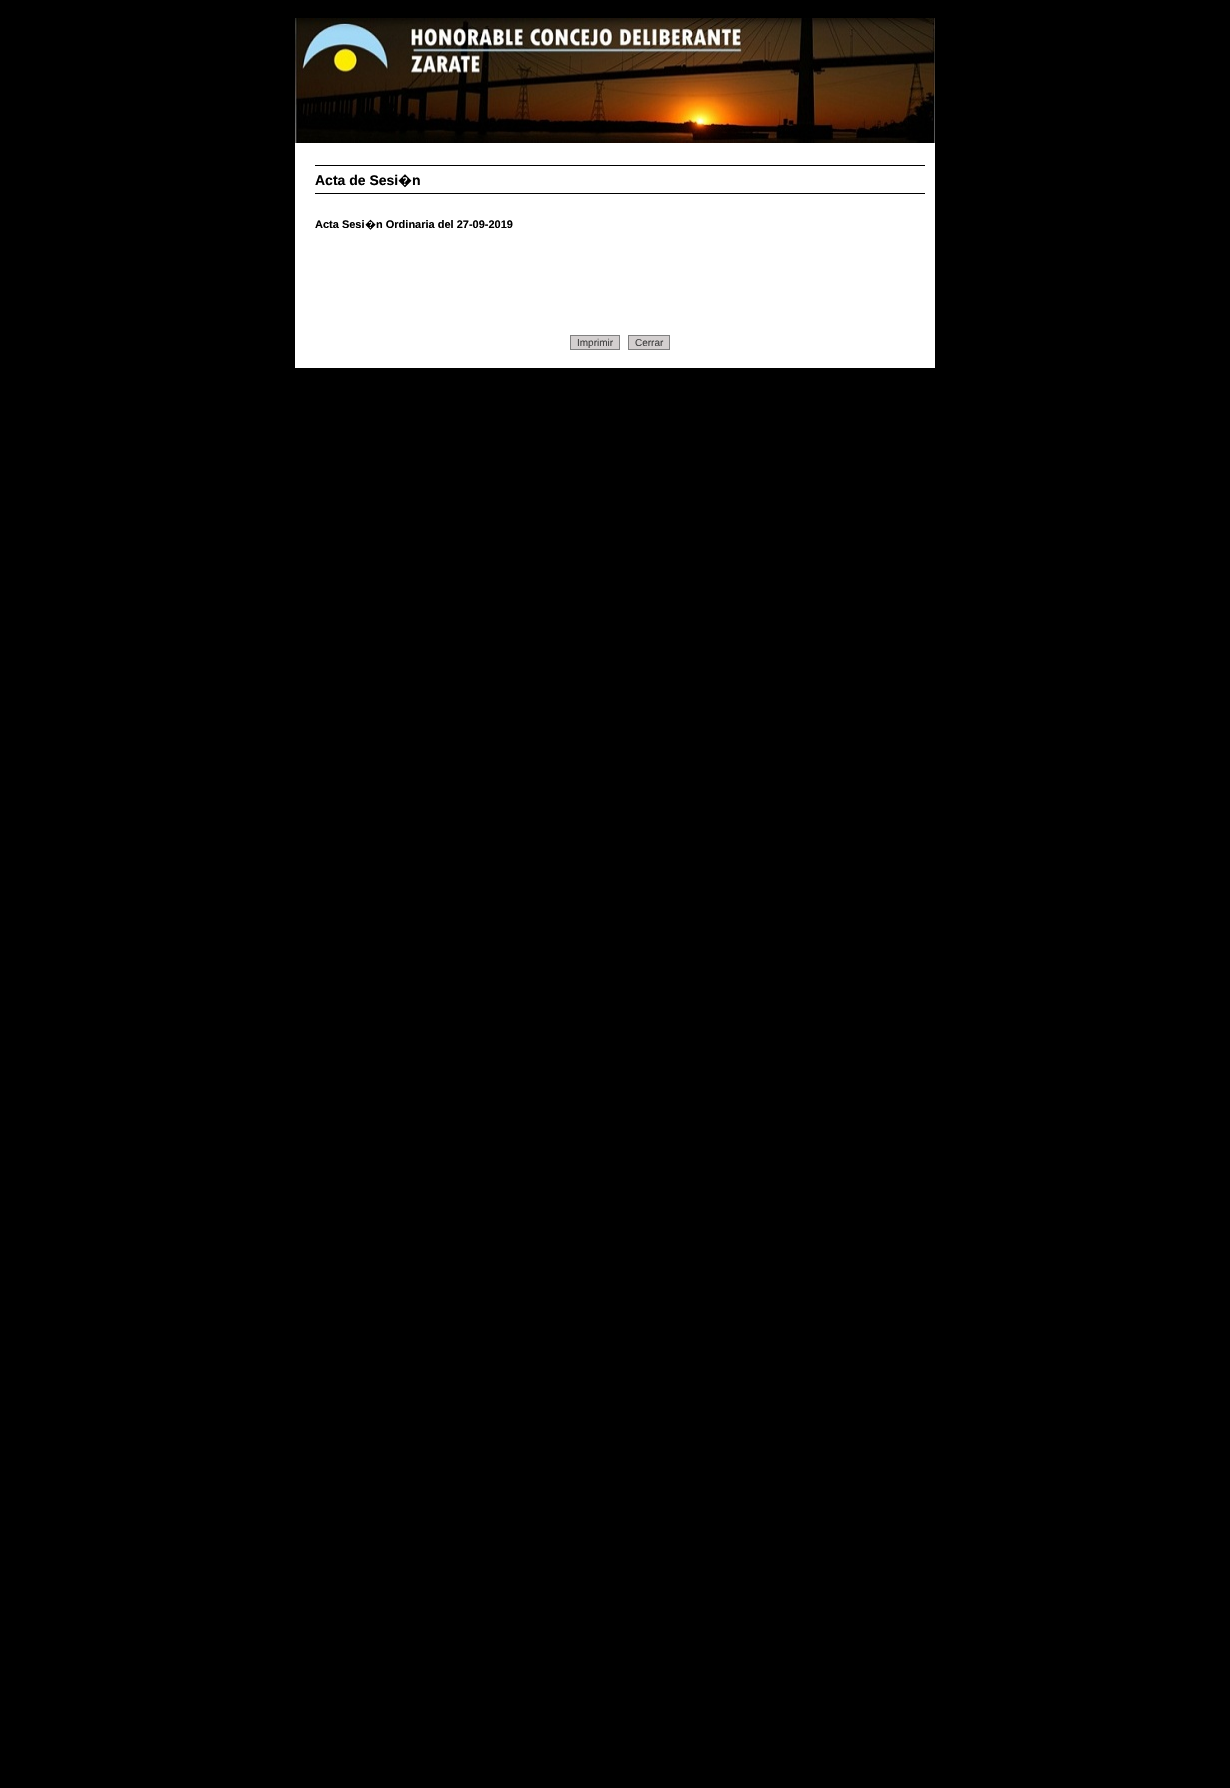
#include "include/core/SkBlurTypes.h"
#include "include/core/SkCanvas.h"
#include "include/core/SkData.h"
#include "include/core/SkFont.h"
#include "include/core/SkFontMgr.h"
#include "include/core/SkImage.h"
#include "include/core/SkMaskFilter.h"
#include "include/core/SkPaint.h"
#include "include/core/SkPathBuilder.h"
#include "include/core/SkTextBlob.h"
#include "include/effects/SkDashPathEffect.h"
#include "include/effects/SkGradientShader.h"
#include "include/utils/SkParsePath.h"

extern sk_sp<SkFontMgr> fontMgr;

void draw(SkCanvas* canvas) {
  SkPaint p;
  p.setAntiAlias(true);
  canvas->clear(SK_ColorBLACK);
  canvas->drawImageRect(SkImages::DeferredFromEncodedData(SkData::MakeFromFileName("images/1.png")), SkRect::MakeLTRB(295, 18, 935, 143), SkSamplingOptions());
  p.setColor(SK_ColorWHITE);
  canvas->drawRect(SkRect::MakeLTRB(295, 143, 935, 368), p);
  p.setColor(SK_ColorBLACK);
  canvas->drawRect(SkRect::MakeLTRB(315, 165, 925, 166), p);
  canvas->drawRect(SkRect::MakeLTRB(315, 193, 925, 194), p);
  p.setColor(SkColorSetRGB(211, 207, 207));
  canvas->drawRect(SkRect::MakeLTRB(570.5f, 335.5f, 619.5f, 349.5f), p);
  p.setStyle(SkPaint::kStroke_Style);
  p.setStrokeWidth(1);
  p.setColor(SkColorSetRGB(128, 128, 128));
  canvas->drawRect(SkRect::MakeLTRB(570.5f, 335.5f, 619.5f, 349.5f), p);
  p.setStyle(SkPaint::kFill_Style);
  p.setColor(SkColorSetRGB(211, 207, 207));
  canvas->drawRect(SkRect::MakeLTRB(628.5f, 335.5f, 669.5f, 349.5f), p);
  p.setStyle(SkPaint::kStroke_Style);
  p.setColor(SkColorSetRGB(128, 128, 128));
  canvas->drawRect(SkRect::MakeLTRB(628.5f, 335.5f, 669.5f, 349.5f), p);
  SkFont font1(fontMgr->matchFamilyStyle("Liberation Sans", SkFontStyle::Bold()), 14);
  font1.setSubpixel(true);
  p.setStyle(SkPaint::kFill_Style);
  p.setColor(SK_ColorBLACK);
  canvas->drawString("Acta de Sesi", 315, 185, font1, p);
  SkFont font2(fontMgr->matchFamilyStyle("Noto Sans", SkFontStyle::Bold()), 14);
  font2.setSubpixel(true);
  canvas->drawString("�", 398, 185, font2, p);
  canvas->drawString("n", 412, 185, font1, p);
  SkFont font3(fontMgr->matchFamilyStyle("Liberation Sans", SkFontStyle::Bold()), 11);
  font3.setSubpixel(true);
  canvas->drawString("Acta Sesi", 315, 228, font3, p);
  SkFont font4(fontMgr->matchFamilyStyle("Noto Sans", SkFontStyle::Bold()), 11);
  font4.setSubpixel(true);
  canvas->drawString("�", 365, 228, font4, p);
  canvas->drawString("n Ordinaria del 27-09-2019", 376, 228, font3, p);
  SkFont font5(fontMgr->matchFamilyStyle("Liberation Sans", SkFontStyle::Normal()), 10);
  font5.setSubpixel(true);
  p.setColor(SkColorSetRGB(64, 64, 64));
  canvas->drawString("Imprimir", 577, 346, font5, p);
  canvas->drawString("Cerrar", 635, 346, font5, p);
}
